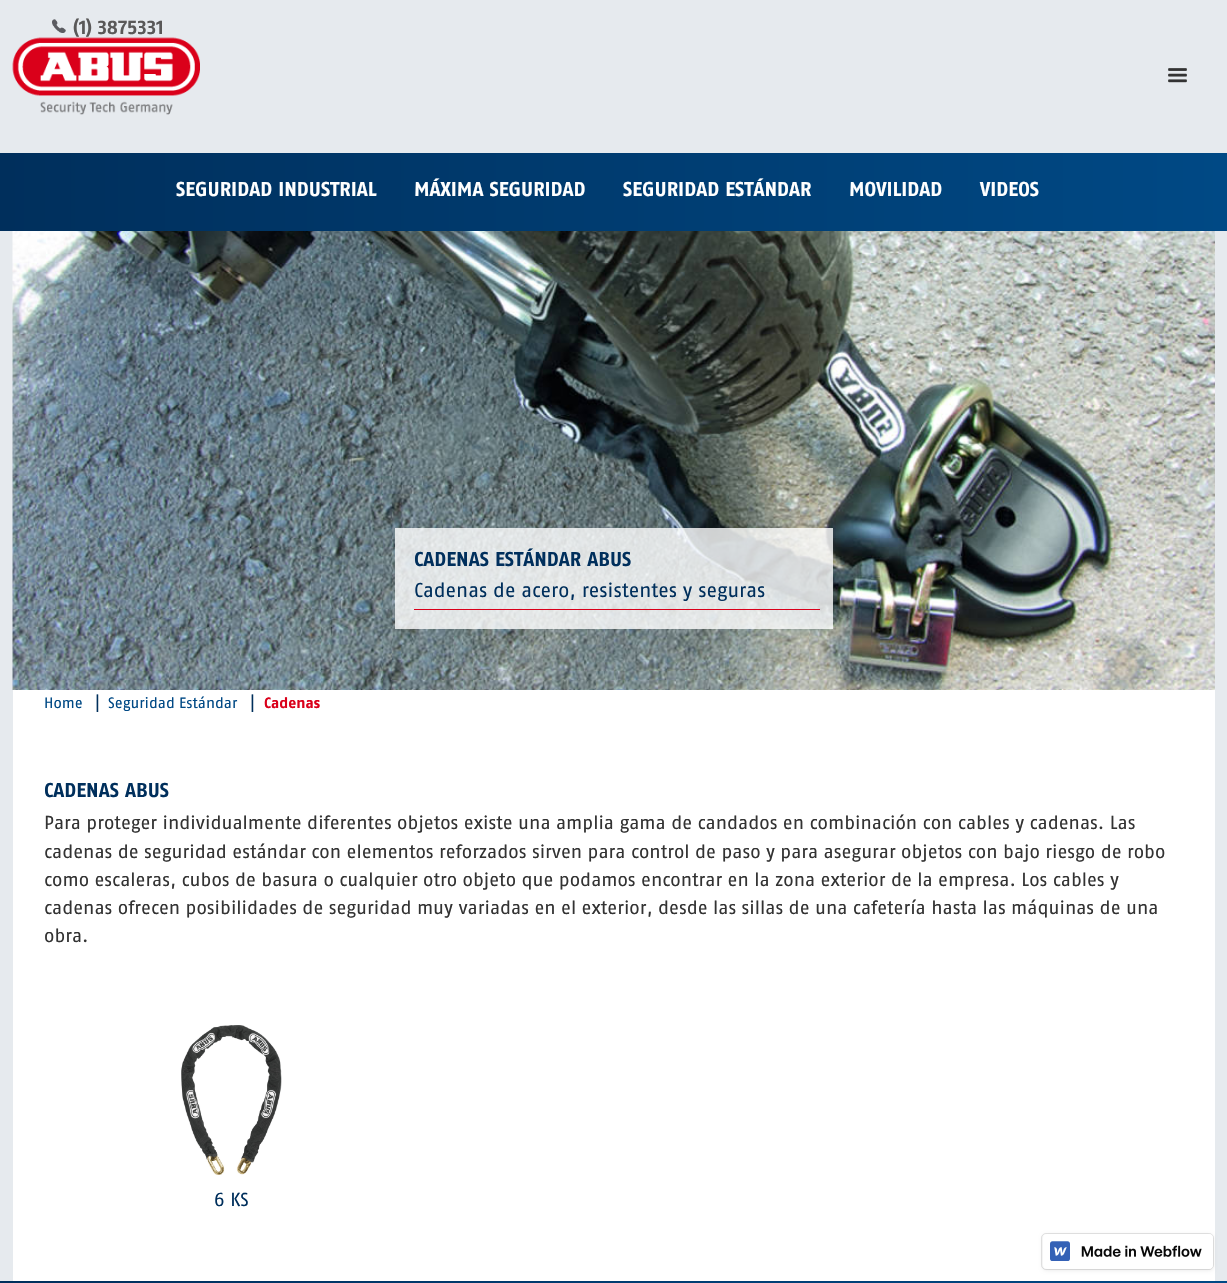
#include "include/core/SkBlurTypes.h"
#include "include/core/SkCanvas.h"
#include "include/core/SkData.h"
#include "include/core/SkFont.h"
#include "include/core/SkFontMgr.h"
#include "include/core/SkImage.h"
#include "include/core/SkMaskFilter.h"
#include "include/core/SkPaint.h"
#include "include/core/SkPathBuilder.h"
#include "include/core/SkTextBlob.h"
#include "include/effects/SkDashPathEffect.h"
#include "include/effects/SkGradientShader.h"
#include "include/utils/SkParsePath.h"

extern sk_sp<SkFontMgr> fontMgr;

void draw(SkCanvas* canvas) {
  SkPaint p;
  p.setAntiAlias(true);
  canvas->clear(SkColorSetRGB(230, 234, 238));
  canvas->drawImageRect(SkImages::DeferredFromEncodedData(SkData::MakeFromFileName("images/1.png")), SkRect::MakeLTRB(52, 19, 66, 33), SkSamplingOptions());
  canvas->drawImageRect(SkImages::DeferredFromEncodedData(SkData::MakeFromFileName("images/2.png")), SkRect::MakeLTRB(12, 37, 200, 115), SkSamplingOptions());
  canvas->drawImageRect(SkImages::DeferredFromEncodedData(SkData::MakeFromFileName("images/3.png")), SkRect::MakeLTRB(1168, 68, 1187, 83), SkSamplingOptions());
  {
    const SkColor colors[] = {SkColorSetRGB(0, 47, 92), SkColorSetRGB(0, 73, 133)};
    const float stops[] = {0, 1};
    const SkPoint ends[] = {{0, 192}, {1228, 192}};
    p.setShader(SkGradientShader::MakeLinear(ends, colors, stops, 2, SkTileMode::kClamp));
    p.setAlpha(255);
  }
  canvas->drawRect(SkRect::MakeLTRB(0, 153, 1227, 231), p);
  p.setShader(nullptr);
  p.setColor(SK_ColorWHITE);
  canvas->drawRect(SkRect::MakeLTRB(13, 690, 1215, 1281), p);
  canvas->drawImageRect(SkImages::DeferredFromEncodedData(SkData::MakeFromFileName("images/4.png")), SkRect::MakeLTRB(12, 231, 1215, 690), SkSamplingOptions());
  p.setColor(SkColorSetARGB(204, 255, 255, 255));
  canvas->drawRect(SkRect::MakeLTRB(395, 528, 833, 629), p);
  p.setColor(SkColorSetRGB(218, 0, 26));
  canvas->drawRect(SkRect::MakeLTRB(414, 609, 820, 610), p);
  canvas->drawImageRect(SkImages::DeferredFromEncodedData(SkData::MakeFromFileName("images/5.png")), SkRect::MakeLTRB(181, 1025, 282, 1175), SkSamplingOptions());
  p.setColor(SkColorSetARGB(26, 0, 0, 0));
  p.setMaskFilter(SkMaskFilter::MakeBlur(kNormal_SkBlurStyle, 2));
  canvas->drawRoundRect(SkRect::MakeLTRB(1043, 1235, 1213, 1270), 4, 4, p);
  p.setMaskFilter(nullptr);
  p.setStyle(SkPaint::kStroke_Style);
  p.setStrokeWidth(1);
  canvas->drawRoundRect(SkRect::MakeLTRB(1041.5f, 1233.5f, 1213.5f, 1269.5f), 4.5f, 4.5f, p);
  p.setStyle(SkPaint::kFill_Style);
  p.setColor(SK_ColorWHITE);
  canvas->drawRoundRect(SkRect::MakeLTRB(1043, 1234, 1213, 1269), 4, 4, p);
  canvas->drawImageRect(SkImages::DeferredFromEncodedData(SkData::MakeFromFileName("images/6.png")), SkRect::MakeLTRB(1050, 1241, 1070, 1261), SkSamplingOptions());
  canvas->drawImageRect(SkImages::DeferredFromEncodedData(SkData::MakeFromFileName("images/7.png")), SkRect::MakeLTRB(1081, 1245, 1202, 1257), SkSamplingOptions());
  {
    const SkColor colors[] = {SkColorSetRGB(0, 47, 92), SkColorSetRGB(0, 73, 133)};
    const float stops[] = {0, 1};
    const SkPoint ends[] = {{0, 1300}, {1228, 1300}};
    p.setShader(SkGradientShader::MakeLinear(ends, colors, stops, 2, SkTileMode::kClamp));
    p.setAlpha(255);
  }
  canvas->drawRect(SkRect::MakeLTRB(0, 1281, 1227, 1283), p);
  SkFont font1(fontMgr->matchFamilyStyle("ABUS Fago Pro", SkFontStyle::Bold()), 18.75f);
  font1.setSubpixel(true);
  p.setShader(nullptr);
  p.setColor(SkColorSetRGB(89, 88, 88));
  canvas->drawString("(1) 3875331", 73, 34, font1, p);
  SkFont font2(fontMgr->matchFamilyStyle("ABUS Fago Pro", SkFontStyle::Bold()), 20);
  font2.setSubpixel(true);
  p.setColor(SK_ColorWHITE);
  canvas->drawString("SEGURIDAD INDUSTRIAL", 176, 196, font2, p);
  canvas->drawString("MÁXIMA SEGURIDAD", 414, 196, font2, p);
  canvas->drawString("SEGURIDAD ESTÁNDAR", 623, 196, font2, p);
  canvas->drawString("MOVILIDAD", 849, 196, font2, p);
  canvas->drawString("VIDEOS", 980, 196, font2, p);
  p.setColor(SkColorSetRGB(0, 47, 92));
  canvas->drawString("CADENAS ESTÁNDAR ABUS", 414, 566, font2, p);
  SkFont font3(fontMgr->matchFamilyStyle("ABUS Fago Pro", SkFontStyle::Normal()), 20);
  font3.setSubpixel(true);
  canvas->drawString("Cadenas de acero, resistentes y seguras", 414, 597, font3, p);
  SkFont font4(fontMgr->matchFamilyStyle("ABUS Fago Pro", SkFontStyle::Normal()), 15);
  font4.setSubpixel(true);
  p.setColor(SkColorSetRGB(0, 73, 133));
  canvas->drawString("Home", 44, 708, font4, p);
  SkFont font5(fontMgr->matchFamilyStyle("Liberation Sans", SkFontStyle::Normal()), 18.75f);
  font5.setSubpixel(true);
  p.setColor(SkColorSetRGB(0, 47, 92));
  canvas->drawString("|", 95, 708, font5, p);
  p.setColor(SkColorSetRGB(0, 73, 133));
  canvas->drawString("Seguridad Estándar", 108, 708, font4, p);
  p.setColor(SkColorSetRGB(0, 47, 92));
  canvas->drawString("|", 250, 708, font5, p);
  SkFont font6(fontMgr->matchFamilyStyle("ABUS Fago Pro", SkFontStyle::Bold()), 15);
  font6.setSubpixel(true);
  p.setColor(SkColorSetRGB(218, 0, 26));
  canvas->drawString("Cadenas", 264, 708, font6, p);
  p.setColor(SkColorSetRGB(0, 47, 92));
  canvas->drawString("CADENAS ABUS", 44, 797, font2, p);
  SkFont font7(fontMgr->matchFamilyStyle("ABUS Fago Pro", SkFontStyle::Normal()), 18.75f);
  font7.setSubpixel(true);
  p.setColor(SkColorSetRGB(51, 51, 51));
  canvas->drawString("Para proteger individualmente diferentes objetos existe una amplia gama de candados en combinación con cables y cadenas. Las", 44, 829, font7, p);
  canvas->drawString("cadenas de seguridad estándar con elementos reforzados sirven para control de paso y para asegurar objetos con bajo riesgo de robo", 44, 858, font7, p);
  canvas->drawString("como escaleras, cubos de basura o cualquier otro objeto que podamos encontrar en la zona exterior de la empresa. Los cables y", 44, 886, font7, p);
  canvas->drawString("cadenas ofrecen posibilidades de seguridad muy variadas en el exterior, desde las sillas de una cafetería hasta las máquinas de una", 44, 914, font7, p);
  canvas->drawString("obra.", 44, 942, font7, p);
  p.setColor(SkColorSetRGB(0, 47, 92));
  canvas->drawString("6 KS", 214, 1206, font7, p);
}
